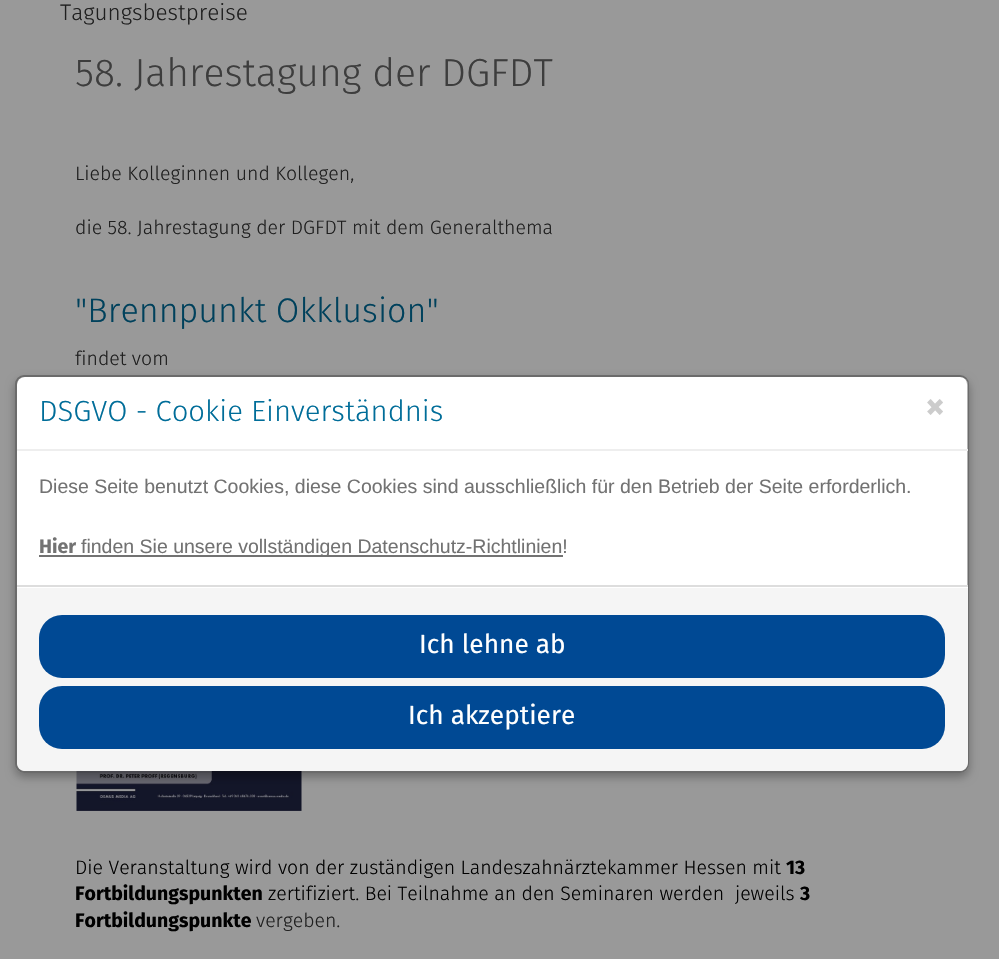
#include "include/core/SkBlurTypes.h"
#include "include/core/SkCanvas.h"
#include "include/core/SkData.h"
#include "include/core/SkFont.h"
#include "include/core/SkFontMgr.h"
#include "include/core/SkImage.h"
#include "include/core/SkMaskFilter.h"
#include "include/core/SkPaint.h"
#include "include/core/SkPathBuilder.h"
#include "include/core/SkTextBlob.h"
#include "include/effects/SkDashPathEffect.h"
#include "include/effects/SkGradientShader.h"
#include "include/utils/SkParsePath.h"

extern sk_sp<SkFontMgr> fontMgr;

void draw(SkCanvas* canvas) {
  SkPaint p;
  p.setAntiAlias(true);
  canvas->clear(SkColorSetRGB(153, 153, 153));
  canvas->drawImageRect(SkImages::DeferredFromEncodedData(SkData::MakeFromFileName("images/1.png")), SkRect::MakeLTRB(76, 771, 302, 811), SkSamplingOptions());
  canvas->save();
  canvas->clipPath(SkPathBuilder(SkPathFillType::kEvenOdd).moveTo(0, 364).lineTo(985, 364).lineTo(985, 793).lineTo(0, 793).close().moveTo(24, 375).lineTo(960, 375).cubicTo(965, 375, 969, 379, 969, 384).lineTo(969, 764).cubicTo(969, 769, 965, 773, 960, 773).lineTo(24, 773).cubicTo(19, 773, 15, 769, 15, 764).lineTo(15, 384).cubicTo(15, 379, 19, 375, 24, 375).close().detach(), true);
  p.setColor(SkColorSetARGB(77, 0, 0, 0));
  p.setMaskFilter(SkMaskFilter::MakeBlur(kNormal_SkBlurStyle, 5));
  canvas->drawRoundRect(SkRect::MakeLTRB(15, 380, 969, 777), 9, 9, p);
  p.setMaskFilter(nullptr);
  canvas->restore();
  p.setColor(SK_ColorWHITE);
  canvas->drawRoundRect(SkRect::MakeLTRB(17, 377, 968, 771), 8, 8, p);
  p.setStyle(SkPaint::kStroke_Style);
  p.setStrokeWidth(2);
  p.setColor(SkColorSetARGB(77, 0, 0, 0));
  canvas->drawRoundRect(SkRect::MakeLTRB(16, 376, 968, 772), 8, 8, p);
  p.setStyle(SkPaint::kFill_Style);
  p.setColor(SkColorSetRGB(238, 238, 238));
  canvas->drawRect(SkRect::MakeLTRB(17, 449, 968, 451), p);
  p.setColor(SkColorSetRGB(114, 114, 114));
  canvas->drawRect(SkRect::MakeLTRB(39, 555, 563, 557), p);
  p.setColor(SkColorSetRGB(245, 245, 245));
  canvas->drawPath(SkPathBuilder().moveTo(17, 585).lineTo(968, 585).lineTo(968, 762).cubicTo(968, 767, 964, 771, 959, 771).lineTo(26, 771).cubicTo(21, 771, 17, 767, 17, 762).close().detach(), p);
  p.setColor(SK_ColorWHITE);
  canvas->drawRect(SkRect::MakeLTRB(17, 587, 968, 588), p);
  p.setColor(SkColorSetRGB(221, 221, 221));
  canvas->drawRect(SkRect::MakeLTRB(17, 585, 968, 587), p);
  p.setColor(SkColorSetRGB(0, 73, 148));
  canvas->drawRoundRect(SkRect::MakeLTRB(39, 615, 945, 678), 23, 23, p);
  canvas->drawRoundRect(SkRect::MakeLTRB(39, 686, 945, 749), 23, 23, p);
  SkFont font1(fontMgr->matchFamilyStyle("Fira Sans", SkFontStyle(300, SkFontStyle::kNormal_Width, SkFontStyle::kUpright_Slant)), 22.5f);
  font1.setSubpixel(true);
  p.setColor(SkColorSetRGB(31, 31, 31));
  canvas->drawString("Tagungsbestpreise", 60, 20, font1, p);
  SkFont font2(fontMgr->matchFamilyStyle("Fira Sans", SkFontStyle(300, SkFontStyle::kNormal_Width, SkFontStyle::kUpright_Slant)), 39);
  font2.setSubpixel(true);
  p.setColor(SkColorSetRGB(61, 61, 61));
  canvas->drawString("58. Jahrestagung der DGFDT", 75, 86, font2, p);
  SkFont font3(fontMgr->matchFamilyStyle("Fira Sans", SkFontStyle(300, SkFontStyle::kNormal_Width, SkFontStyle::kUpright_Slant)), 19.5f);
  font3.setSubpixel(true);
  p.setColor(SkColorSetRGB(31, 31, 31));
  canvas->drawString("Liebe Kolleginnen und Kollegen,", 75, 180, font3, p);
  canvas->drawString("die 58. Jahrestagung der DGFDT mit dem Generalthema", 75, 234, font3, p);
  SkFont font4(fontMgr->matchFamilyStyle("Fira Sans", SkFontStyle(300, SkFontStyle::kNormal_Width, SkFontStyle::kUpright_Slant)), 34.1f);
  font4.setSubpixel(true);
  p.setColor(SkColorSetRGB(0, 65, 92));
  canvas->drawString("\"Brennpunkt Okklusion\"", 75, 322, font4, p);
  p.setColor(SkColorSetRGB(31, 31, 31));
  canvas->drawString("findet vom", 75, 365, font3, p);
  p.setColor(SK_ColorBLACK);
  canvas->drawString("Die Veranstaltung wird von der zuständigen Landeszahnärztekammer Hessen mit", 75, 874, font3, p);
  SkFont font5(fontMgr->matchFamilyStyle("Fira Sans", SkFontStyle::Bold()), 19.5f);
  font5.setSubpixel(true);
  canvas->drawString("13", 786, 874, font5, p);
  canvas->drawString("Fortbildungspunkten", 75, 900, font5, p);
  canvas->drawString("zertifiziert. Bei Teilnahme an den Seminaren werden  jeweils", 268, 900, font3, p);
  canvas->drawString("3", 800, 900, font5, p);
  canvas->drawString("Fortbildungspunkte", 75, 927, font5, p);
  p.setColor(SkColorSetRGB(31, 31, 31));
  canvas->drawString("vergeben.", 256, 927, font3, p);
  SkFont font6(fontMgr->matchFamilyStyle("Fira Sans", SkFontStyle(300, SkFontStyle::kNormal_Width, SkFontStyle::kUpright_Slant)), 29.25f);
  font6.setSubpixel(true);
  p.setColor(SkColorSetRGB(0, 109, 153));
  canvas->drawString("DSGVO - Cookie Einverständnis", 39, 421, font6, p);
  SkFont font7(fontMgr->matchFamilyStyle("Fira Sans", SkFontStyle::Bold()), 39);
  font7.setSubpixel(true);
  p.setColor(SkColorSetRGB(204, 204, 204));
  canvas->drawString("×", 925, 419, font7, p);
  SkFont font8(fontMgr->matchFamilyStyle("Liberation Sans", SkFontStyle::Normal()), 19.5f);
  font8.setSubpixel(true);
  p.setColor(SkColorSetRGB(114, 114, 114));
  canvas->drawString("Diese Seite benutzt Cookies, diese Cookies sind ausschließlich für den Betrieb der Seite erforderlich.", 39, 493, font8, p);
  canvas->drawString("Hier", 39, 553, font5, p);
  canvas->drawString("finden Sie unsere vollständigen Datenschutz-Richtlinien!", 81, 553, font8, p);
  SkFont font9(fontMgr->matchFamilyStyle("Fira Sans", SkFontStyle::Normal()), 26.25f);
  font9.setSubpixel(true);
  p.setColor(SK_ColorWHITE);
  canvas->drawString("Ich lehne ab", 419, 653, font9, p);
  canvas->drawString("Ich akzeptiere", 408, 724, font9, p);
}
